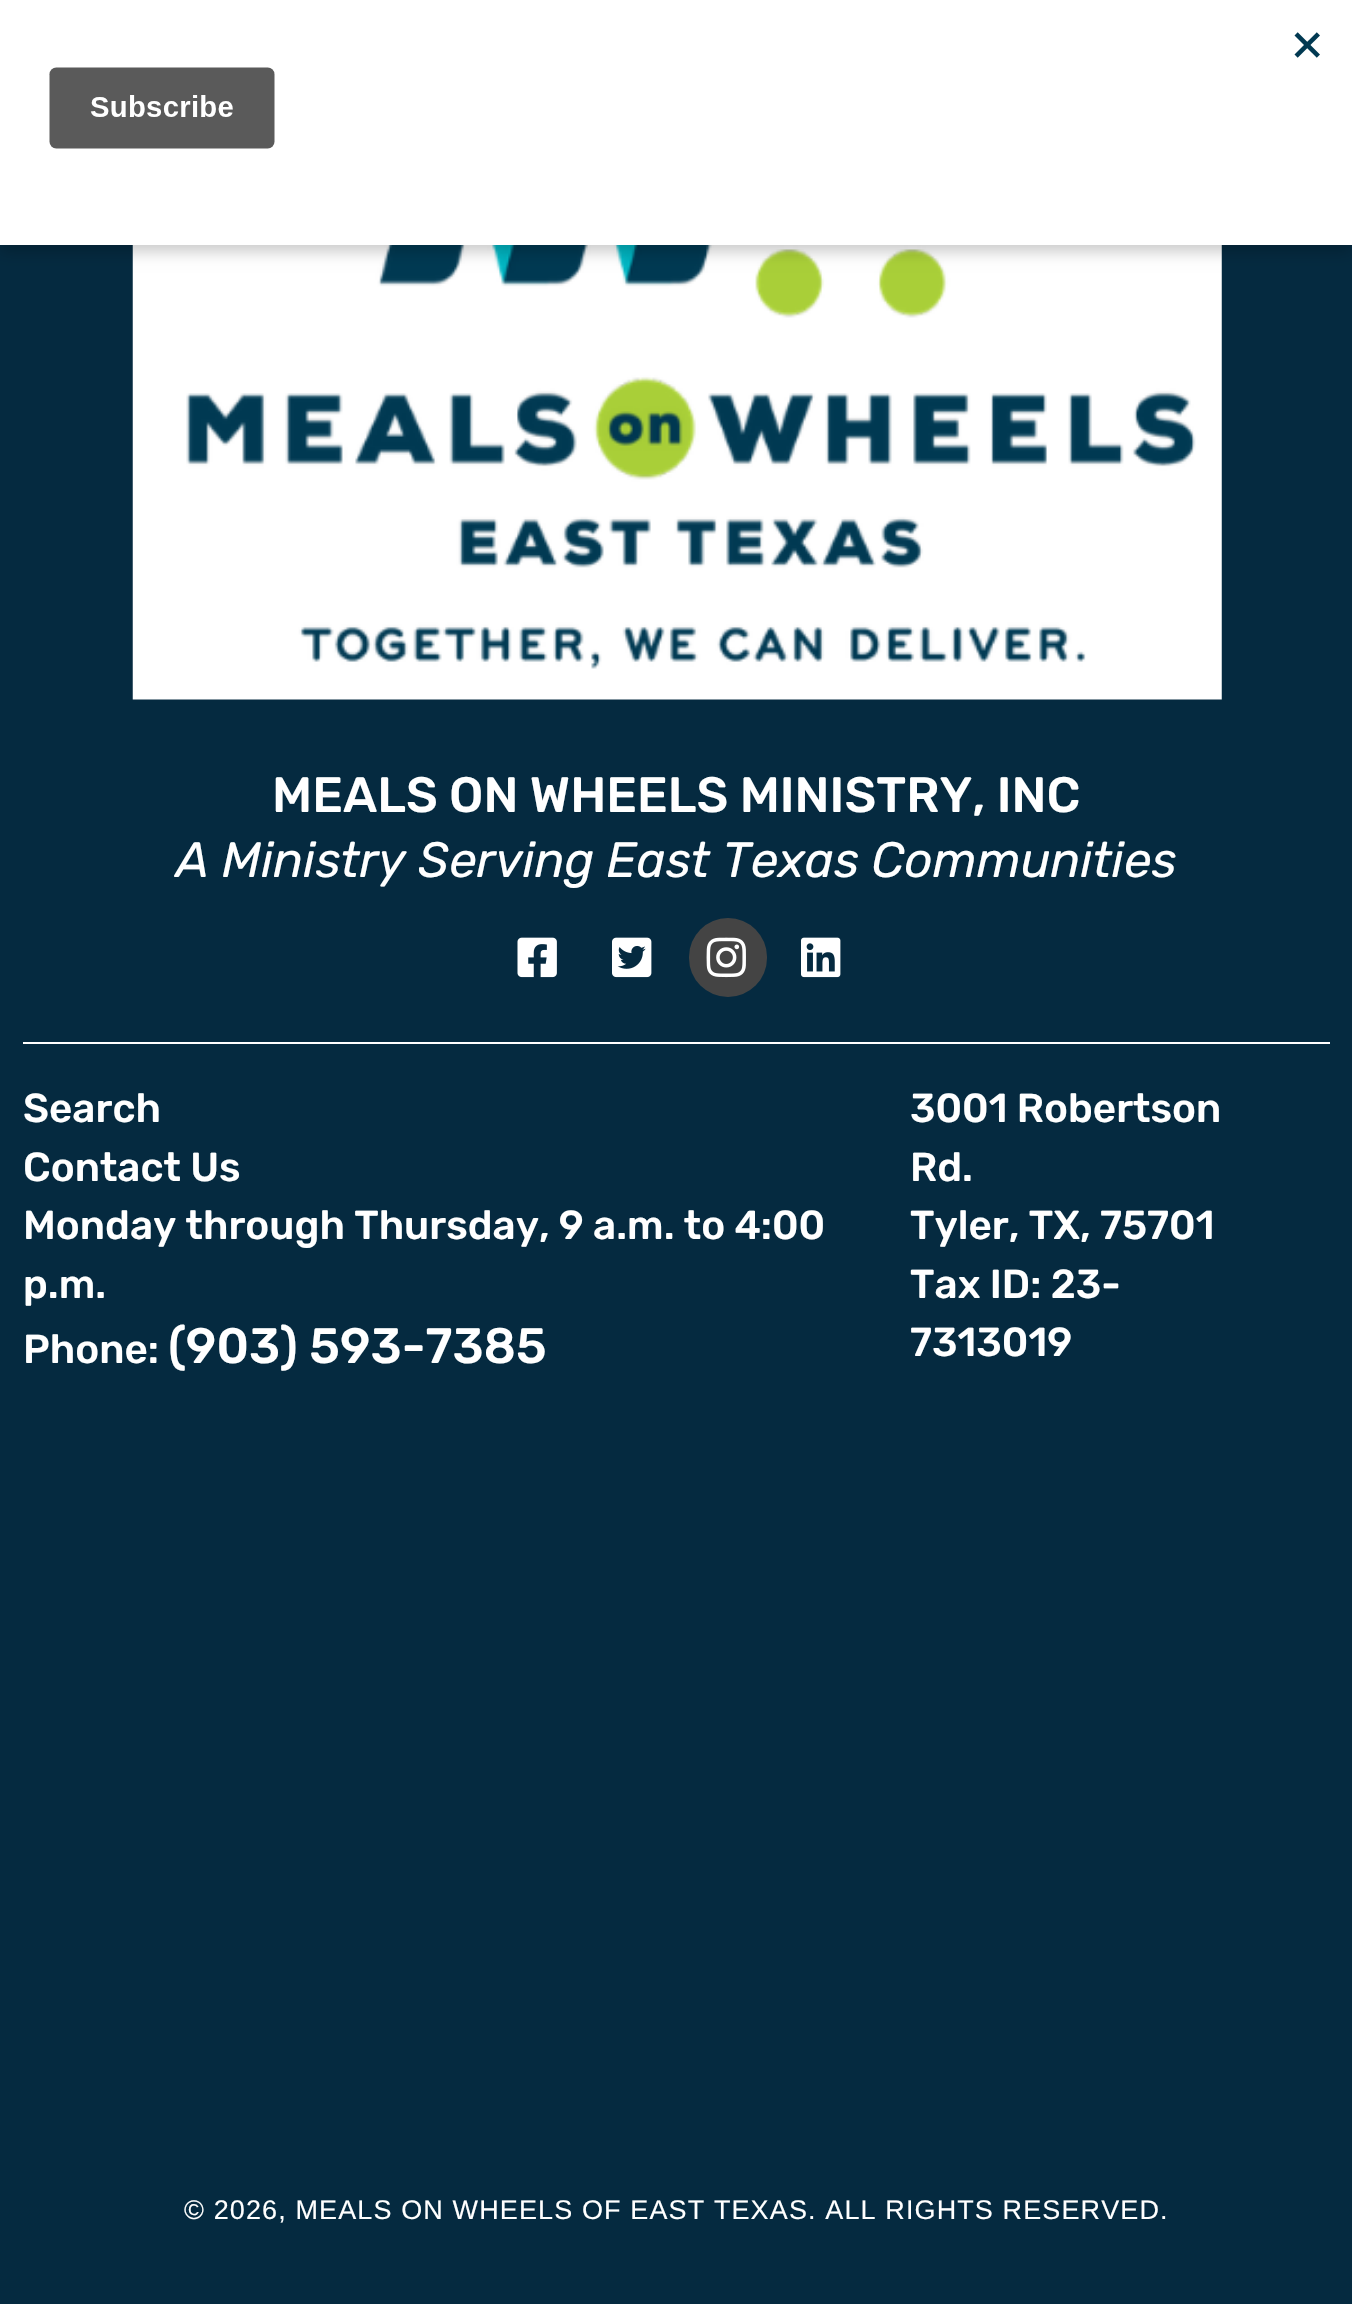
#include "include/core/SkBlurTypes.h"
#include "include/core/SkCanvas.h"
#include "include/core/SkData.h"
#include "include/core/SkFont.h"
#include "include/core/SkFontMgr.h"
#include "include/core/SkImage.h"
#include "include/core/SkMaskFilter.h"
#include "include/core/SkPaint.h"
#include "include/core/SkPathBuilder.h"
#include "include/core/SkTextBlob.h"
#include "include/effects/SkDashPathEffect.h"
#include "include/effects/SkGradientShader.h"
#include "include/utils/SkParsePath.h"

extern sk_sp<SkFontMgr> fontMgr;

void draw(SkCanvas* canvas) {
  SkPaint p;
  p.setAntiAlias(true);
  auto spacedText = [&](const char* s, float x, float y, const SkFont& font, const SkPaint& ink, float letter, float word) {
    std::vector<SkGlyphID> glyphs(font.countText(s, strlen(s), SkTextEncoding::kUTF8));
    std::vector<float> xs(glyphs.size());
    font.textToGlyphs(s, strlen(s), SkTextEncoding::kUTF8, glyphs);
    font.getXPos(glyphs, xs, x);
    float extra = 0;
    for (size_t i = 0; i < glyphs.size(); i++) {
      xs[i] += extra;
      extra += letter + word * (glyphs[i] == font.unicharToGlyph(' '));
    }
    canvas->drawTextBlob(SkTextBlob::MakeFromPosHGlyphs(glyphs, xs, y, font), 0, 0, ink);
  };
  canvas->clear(SkColorSetRGB(5, 42, 64));
  canvas->drawImageRect(SkImages::DeferredFromEncodedData(SkData::MakeFromFileName("images/2.png")), SkRect::MakeLTRB(132, 245, 1222, 700), SkSamplingOptions());
  p.setColor(SkColorSetARGB(51, 0, 0, 0));
  p.setMaskFilter(SkMaskFilter::MakeBlur(kNormal_SkBlurStyle, 7));
  canvas->drawRect(SkRect::MakeLTRB(0, 7, 1352, 252), p);
  p.setMaskFilter(nullptr);
  p.setColor(SK_ColorWHITE);
  canvas->drawRect(SkRect::MakeLTRB(0, 0, 1352, 245), p);
  canvas->drawImageRect(SkImages::DeferredFromEncodedData(SkData::MakeFromFileName("images/1.png")), SkRect::MakeLTRB(49, 32, 1320, 149), SkSamplingOptions());
  canvas->drawImageRect(SkImages::DeferredFromEncodedData(SkData::MakeFromFileName("images/3.png")), SkRect::MakeLTRB(517, 937, 557, 978), SkSamplingOptions());
  canvas->drawImageRect(SkImages::DeferredFromEncodedData(SkData::MakeFromFileName("images/4.png")), SkRect::MakeLTRB(612, 937, 652, 978), SkSamplingOptions());
  p.setColor(SkColorSetRGB(68, 68, 68));
  canvas->drawRoundRect(SkRect::MakeLTRB(689, 918, 767, 997), 39, 39, p);
  canvas->drawImageRect(SkImages::DeferredFromEncodedData(SkData::MakeFromFileName("images/5.png")), SkRect::MakeLTRB(706, 937, 746, 978), SkSamplingOptions());
  canvas->drawImageRect(SkImages::DeferredFromEncodedData(SkData::MakeFromFileName("images/6.png")), SkRect::MakeLTRB(801, 937, 841, 978), SkSamplingOptions());
  p.setColor(SK_ColorWHITE);
  canvas->drawRect(SkRect::MakeLTRB(23, 1042, 1330, 1044), p);
  SkFont font1(fontMgr->matchFamilyStyle("Rubik", SkFontStyle(500, SkFontStyle::kNormal_Width, SkFontStyle::kUpright_Slant)), 49.5f);
  font1.setSubpixel(true);
  canvas->drawString("MEALS ON WHEELS MINISTRY, INC", 272, 812, font1, p);
  SkFont font2(fontMgr->matchFamilyStyle("Rubik", SkFontStyle::Italic()), 49.5f);
  font2.setSubpixel(true);
  canvas->drawString("A Ministry Serving East Texas Communities", 176, 877, font2, p);
  SkFont font3(fontMgr->matchFamilyStyle("Rubik", SkFontStyle(500, SkFontStyle::kNormal_Width, SkFontStyle::kUpright_Slant)), 40.5f);
  font3.setSubpixel(true);
  canvas->drawString("Search", 23, 1122, font3, p);
  canvas->drawString("Contact Us", 23, 1181, font3, p);
  canvas->drawString("Monday through Thursday, 9 a.m. to 4:00", 23, 1239, font3, p);
  canvas->drawString("p.m.", 23, 1298, font3, p);
  canvas->drawString("Phone:", 23, 1363, font3, p);
  canvas->drawString("(903) 593-7385", 168, 1363, font1, p);
  canvas->drawString("3001 Robertson", 910, 1122, font3, p);
  canvas->drawString("Rd.", 910, 1181, font3, p);
  canvas->drawString("Tyler, TX, 75701", 910, 1239, font3, p);
  canvas->drawString("Tax ID: 23-", 910, 1298, font3, p);
  canvas->drawString("7313019", 910, 1356, font3, p);
  SkFont font4(fontMgr->matchFamilyStyle("Liberation Sans", SkFontStyle::Normal()), 27);
  font4.setSubpixel(true);
  spacedText("© 2026, MEALS ON WHEELS OF EAST TEXAS. ALL RIGHTS RESERVED.", 184, 2219, font4, p, 1.12f, 0);
}
